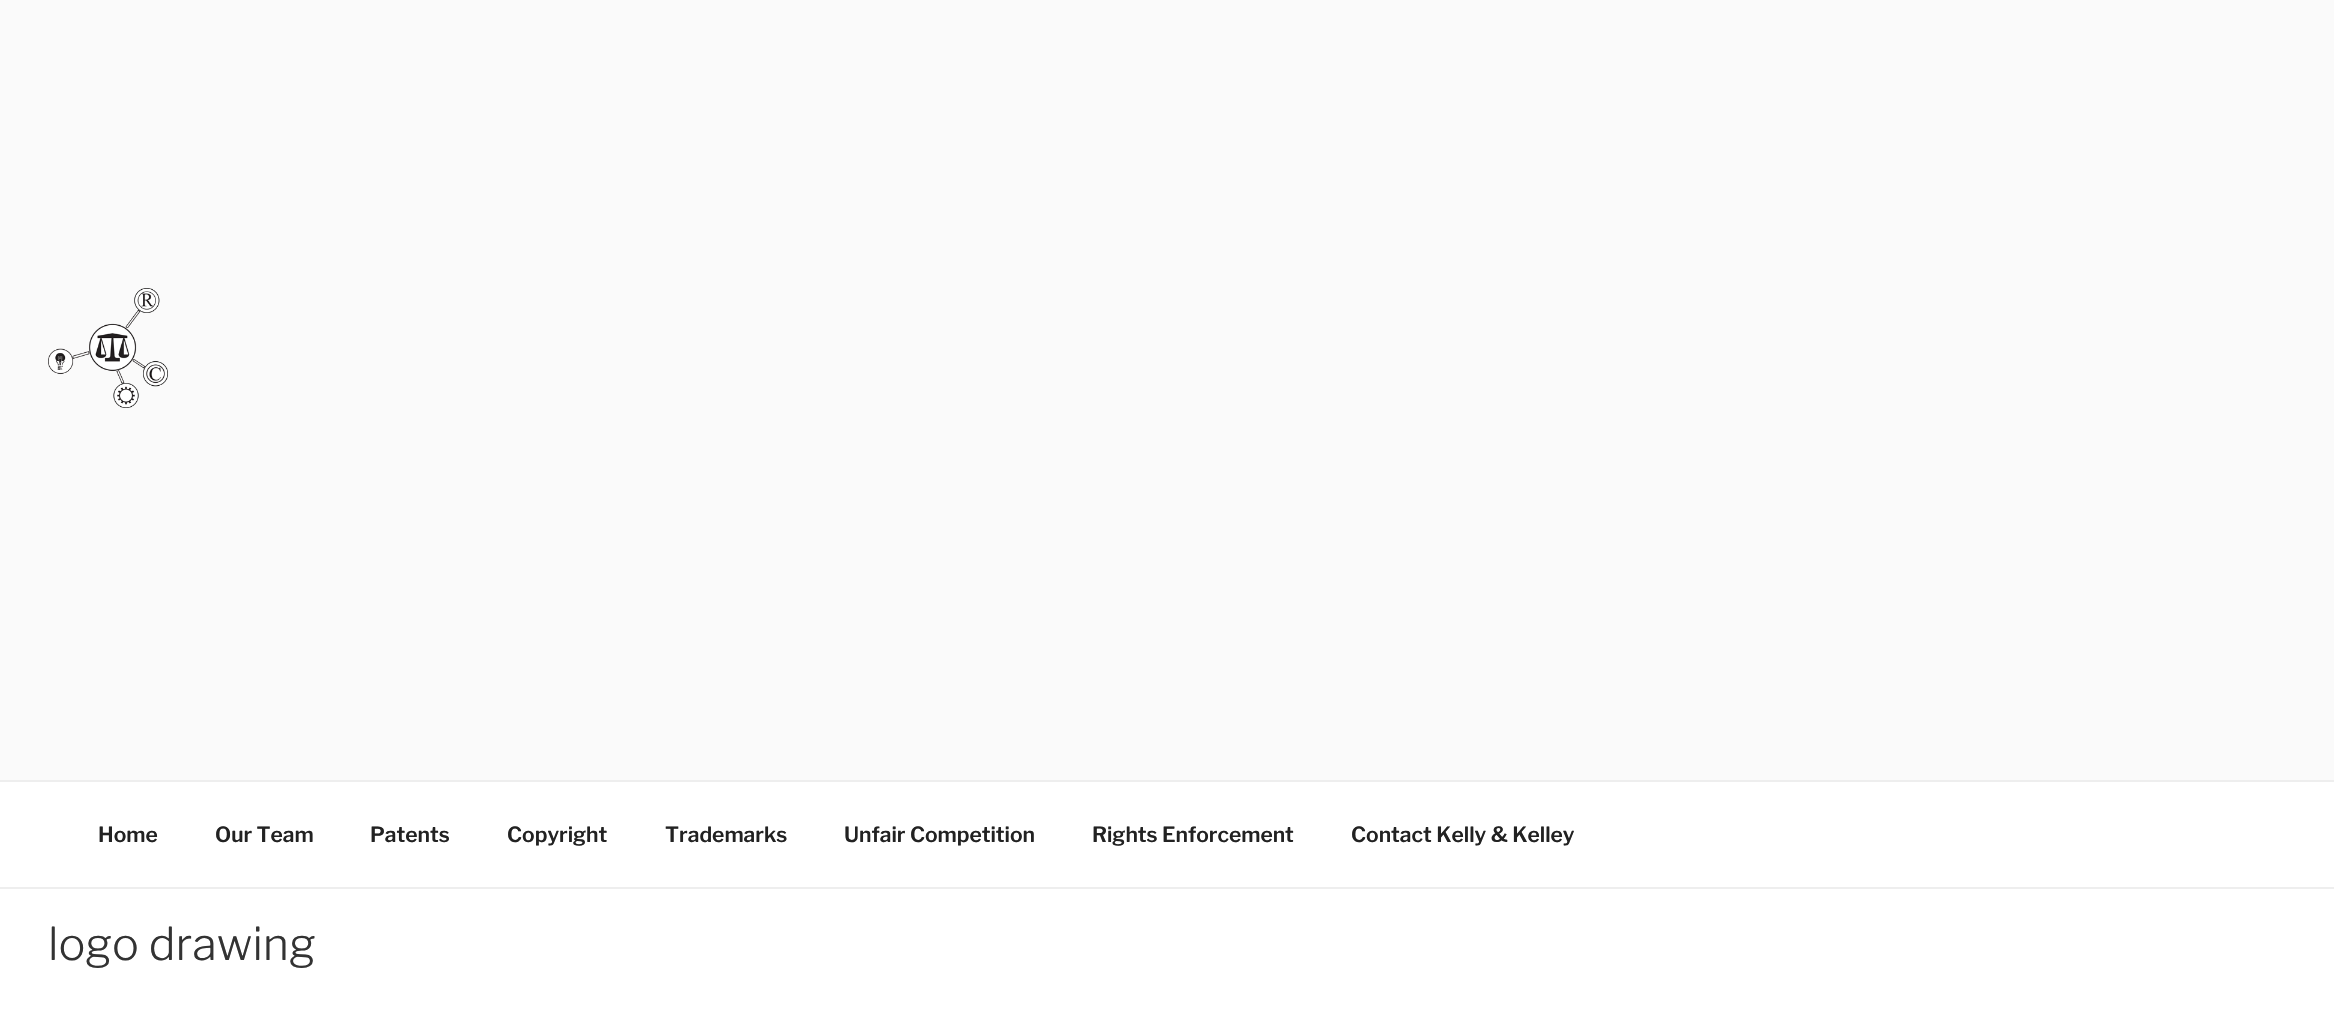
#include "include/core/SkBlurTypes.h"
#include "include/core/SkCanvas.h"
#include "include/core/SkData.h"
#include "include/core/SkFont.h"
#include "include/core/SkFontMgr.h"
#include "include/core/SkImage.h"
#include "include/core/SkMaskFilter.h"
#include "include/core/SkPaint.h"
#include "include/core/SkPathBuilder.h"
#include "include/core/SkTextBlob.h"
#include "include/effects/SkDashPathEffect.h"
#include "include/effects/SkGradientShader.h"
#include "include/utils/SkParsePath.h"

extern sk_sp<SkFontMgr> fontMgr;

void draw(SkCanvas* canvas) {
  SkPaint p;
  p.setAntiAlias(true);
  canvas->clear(SK_ColorWHITE);
  p.setColor(SkColorSetRGB(250, 250, 250));
  canvas->drawRect(SkRect::MakeLTRB(0, 0, 2334, 780), p);
  canvas->drawImageRect(SkImages::DeferredFromEncodedData(SkData::MakeFromFileName("images/1.png")), SkRect::MakeLTRB(48, 288, 168, 408), SkSamplingOptions());
  p.setColor(SkColorSetRGB(238, 238, 238));
  canvas->drawRect(SkRect::MakeLTRB(0, 780, 2334, 782), p);
  canvas->drawRect(SkRect::MakeLTRB(0, 887, 2334, 889), p);
  SkFont font1(fontMgr->matchFamilyStyle("Libre Franklin", SkFontStyle(600, SkFontStyle::kNormal_Width, SkFontStyle::kUpright_Slant)), 21);
  font1.setSubpixel(true);
  p.setColor(SkColorSetRGB(34, 34, 34));
  canvas->drawString("Home", 98, 842, font1, p);
  canvas->drawString("Our Team", 215, 842, font1, p);
  canvas->drawString("Patents", 370, 842, font1, p);
  canvas->drawString("Copyright", 507, 842, font1, p);
  canvas->drawString("Trademarks", 665, 842, font1, p);
  canvas->drawString("Unfair Competition", 844, 842, font1, p);
  canvas->drawString("Rights Enforcement", 1092, 842, font1, p);
  canvas->drawString("Contact Kelly & Kelley", 1351, 842, font1, p);
  SkFont font2(fontMgr->matchFamilyStyle("Libre Franklin", SkFontStyle(300, SkFontStyle::kNormal_Width, SkFontStyle::kUpright_Slant)), 45);
  font2.setSubpixel(true);
  p.setColor(SkColorSetRGB(51, 51, 51));
  canvas->drawString("logo drawing", 48, 960, font2, p);
}
